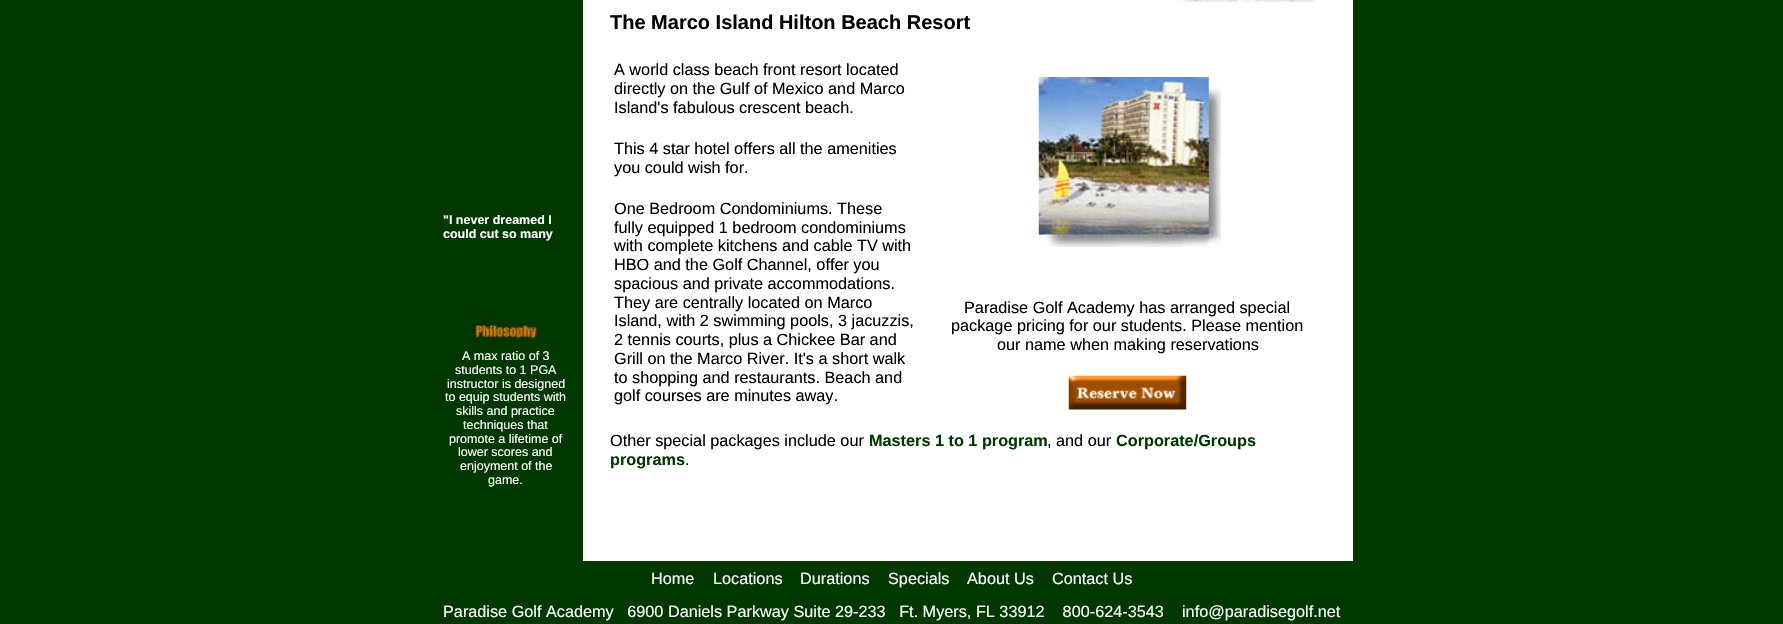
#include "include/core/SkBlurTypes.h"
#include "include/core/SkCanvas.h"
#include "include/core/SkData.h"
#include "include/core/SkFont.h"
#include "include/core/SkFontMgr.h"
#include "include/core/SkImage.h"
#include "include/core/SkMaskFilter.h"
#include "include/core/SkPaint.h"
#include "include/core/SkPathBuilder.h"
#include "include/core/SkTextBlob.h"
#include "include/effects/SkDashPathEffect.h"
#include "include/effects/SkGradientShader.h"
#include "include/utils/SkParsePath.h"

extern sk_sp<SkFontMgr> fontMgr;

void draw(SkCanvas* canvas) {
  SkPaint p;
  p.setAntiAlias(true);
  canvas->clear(SkColorSetRGB(0, 56, 0));
  canvas->drawImageRect(SkImages::DeferredFromEncodedData(SkData::MakeFromFileName("images/1.png")), SkRect::MakeLTRB(473, 317, 542, 341), SkSamplingOptions());
  p.setColor(SK_ColorWHITE);
  canvas->drawRect(SkRect::MakeLTRB(583, 0, 1353, 561), p);
  canvas->drawImageRect(SkImages::DeferredFromEncodedData(SkData::MakeFromFileName("images/2.png")), SkRect::MakeLTRB(1176, 0, 1316, 5), SkSamplingOptions());
  canvas->drawImageRect(SkImages::DeferredFromEncodedData(SkData::MakeFromFileName("images/3.png")), SkRect::MakeLTRB(1038, 77, 1222, 247), SkSamplingOptions());
  canvas->drawImageRect(SkImages::DeferredFromEncodedData(SkData::MakeFromFileName("images/4.png")), SkRect::MakeLTRB(1068, 375, 1187, 410), SkSamplingOptions());
  SkFont font1(fontMgr->matchFamilyStyle("Liberation Sans", SkFontStyle::Bold()), 12.5f);
  font1.setSubpixel(true);
  canvas->drawString("\"I never dreamed I", 443, 224, font1, p);
  canvas->drawString("could cut so many", 443, 238, font1, p);
  SkFont font2(fontMgr->matchFamilyStyle("Liberation Sans", SkFontStyle::Normal()), 12.5f);
  font2.setSubpixel(true);
  canvas->drawString("A max ratio of 3", 462, 360, font2, p);
  canvas->drawString("students to 1 PGA", 455, 374, font2, p);
  canvas->drawString("instructor is designed", 447, 388, font2, p);
  canvas->drawString("to equip students with", 445, 401, font2, p);
  canvas->drawString("skills and practice", 456, 415, font2, p);
  canvas->drawString("techniques that", 463, 429, font2, p);
  canvas->drawString("promote a lifetime of", 449, 443, font2, p);
  canvas->drawString("lower scores and", 458, 456, font2, p);
  canvas->drawString("enjoyment of the", 460, 470, font2, p);
  canvas->drawString("game.", 488, 484, font2, p);
  SkFont font3(fontMgr->matchFamilyStyle("Liberation Sans", SkFontStyle::Bold()), 20);
  font3.setSubpixel(true);
  p.setColor(SK_ColorBLACK);
  canvas->drawString("The Marco Island Hilton Beach Resort", 610, 29, font3, p);
  SkFont font4(fontMgr->matchFamilyStyle("Liberation Sans", SkFontStyle::Normal()), 16.25f);
  font4.setSubpixel(true);
  canvas->drawString("A world class beach front resort located", 614, 75, font4, p);
  canvas->drawString("directly on the Gulf of Mexico and Marco", 614, 94, font4, p);
  canvas->drawString("Island's fabulous crescent beach.", 614, 113, font4, p);
  canvas->drawString("This 4 star hotel offers all the amenities", 614, 154, font4, p);
  canvas->drawString("you could wish for.", 614, 173, font4, p);
  canvas->drawString("One Bedroom Condominiums. These", 614, 214, font4, p);
  canvas->drawString("fully equipped 1 bedroom condominiums", 614, 233, font4, p);
  canvas->drawString("with complete kitchens and cable TV with", 614, 251, font4, p);
  canvas->drawString("HBO and the Golf Channel, offer you", 614, 270, font4, p);
  canvas->drawString("spacious and private accommodations.", 614, 289, font4, p);
  canvas->drawString("They are centrally located on Marco", 614, 308, font4, p);
  canvas->drawString("Island, with 2 swimming pools, 3 jacuzzis,", 614, 326, font4, p);
  canvas->drawString("2 tennis courts, plus a Chickee Bar and", 614, 345, font4, p);
  canvas->drawString("Grill on the Marco River. It's a short walk", 614, 364, font4, p);
  canvas->drawString("to shopping and restaurants. Beach and", 614, 383, font4, p);
  canvas->drawString("golf courses are minutes away.", 614, 401, font4, p);
  canvas->drawString("Paradise Golf Academy has arranged special", 964, 313, font4, p);
  canvas->drawString("package pricing for our students. Please mention", 951, 331, font4, p);
  canvas->drawString("our name when making reservations", 997, 350, font4, p);
  canvas->drawString("Other special packages include our", 610, 446, font4, p);
  SkFont font5(fontMgr->matchFamilyStyle("Liberation Sans", SkFontStyle::Bold()), 16.25f);
  font5.setSubpixel(true);
  p.setColor(SkColorSetRGB(0, 56, 0));
  canvas->drawString("Masters 1 to 1 program", 869, 446, font5, p);
  p.setColor(SK_ColorBLACK);
  canvas->drawString(", and our", 1047, 446, font4, p);
  p.setColor(SkColorSetRGB(0, 56, 0));
  canvas->drawString("Corporate/Groups", 1116, 446, font5, p);
  canvas->drawString("programs", 610, 465, font5, p);
  p.setColor(SK_ColorBLACK);
  canvas->drawString(".", 685, 465, font4, p);
  p.setColor(SK_ColorWHITE);
  canvas->drawString("Home", 651, 584, font4, p);
  canvas->drawString("Locations", 713, 584, font4, p);
  canvas->drawString("Durations", 800, 584, font4, p);
  canvas->drawString("Specials", 888, 584, font4, p);
  canvas->drawString("About Us", 967, 584, font4, p);
  canvas->drawString("Contact Us", 1052, 584, font4, p);
  canvas->drawString("Paradise Golf Academy   6900 Daniels Parkway Suite 29-233   Ft. Myers, FL 33912    800-624-3543", 443, 617, font4, p);
  canvas->drawString("info@paradisegolf.net", 1182, 617, font4, p);
}
